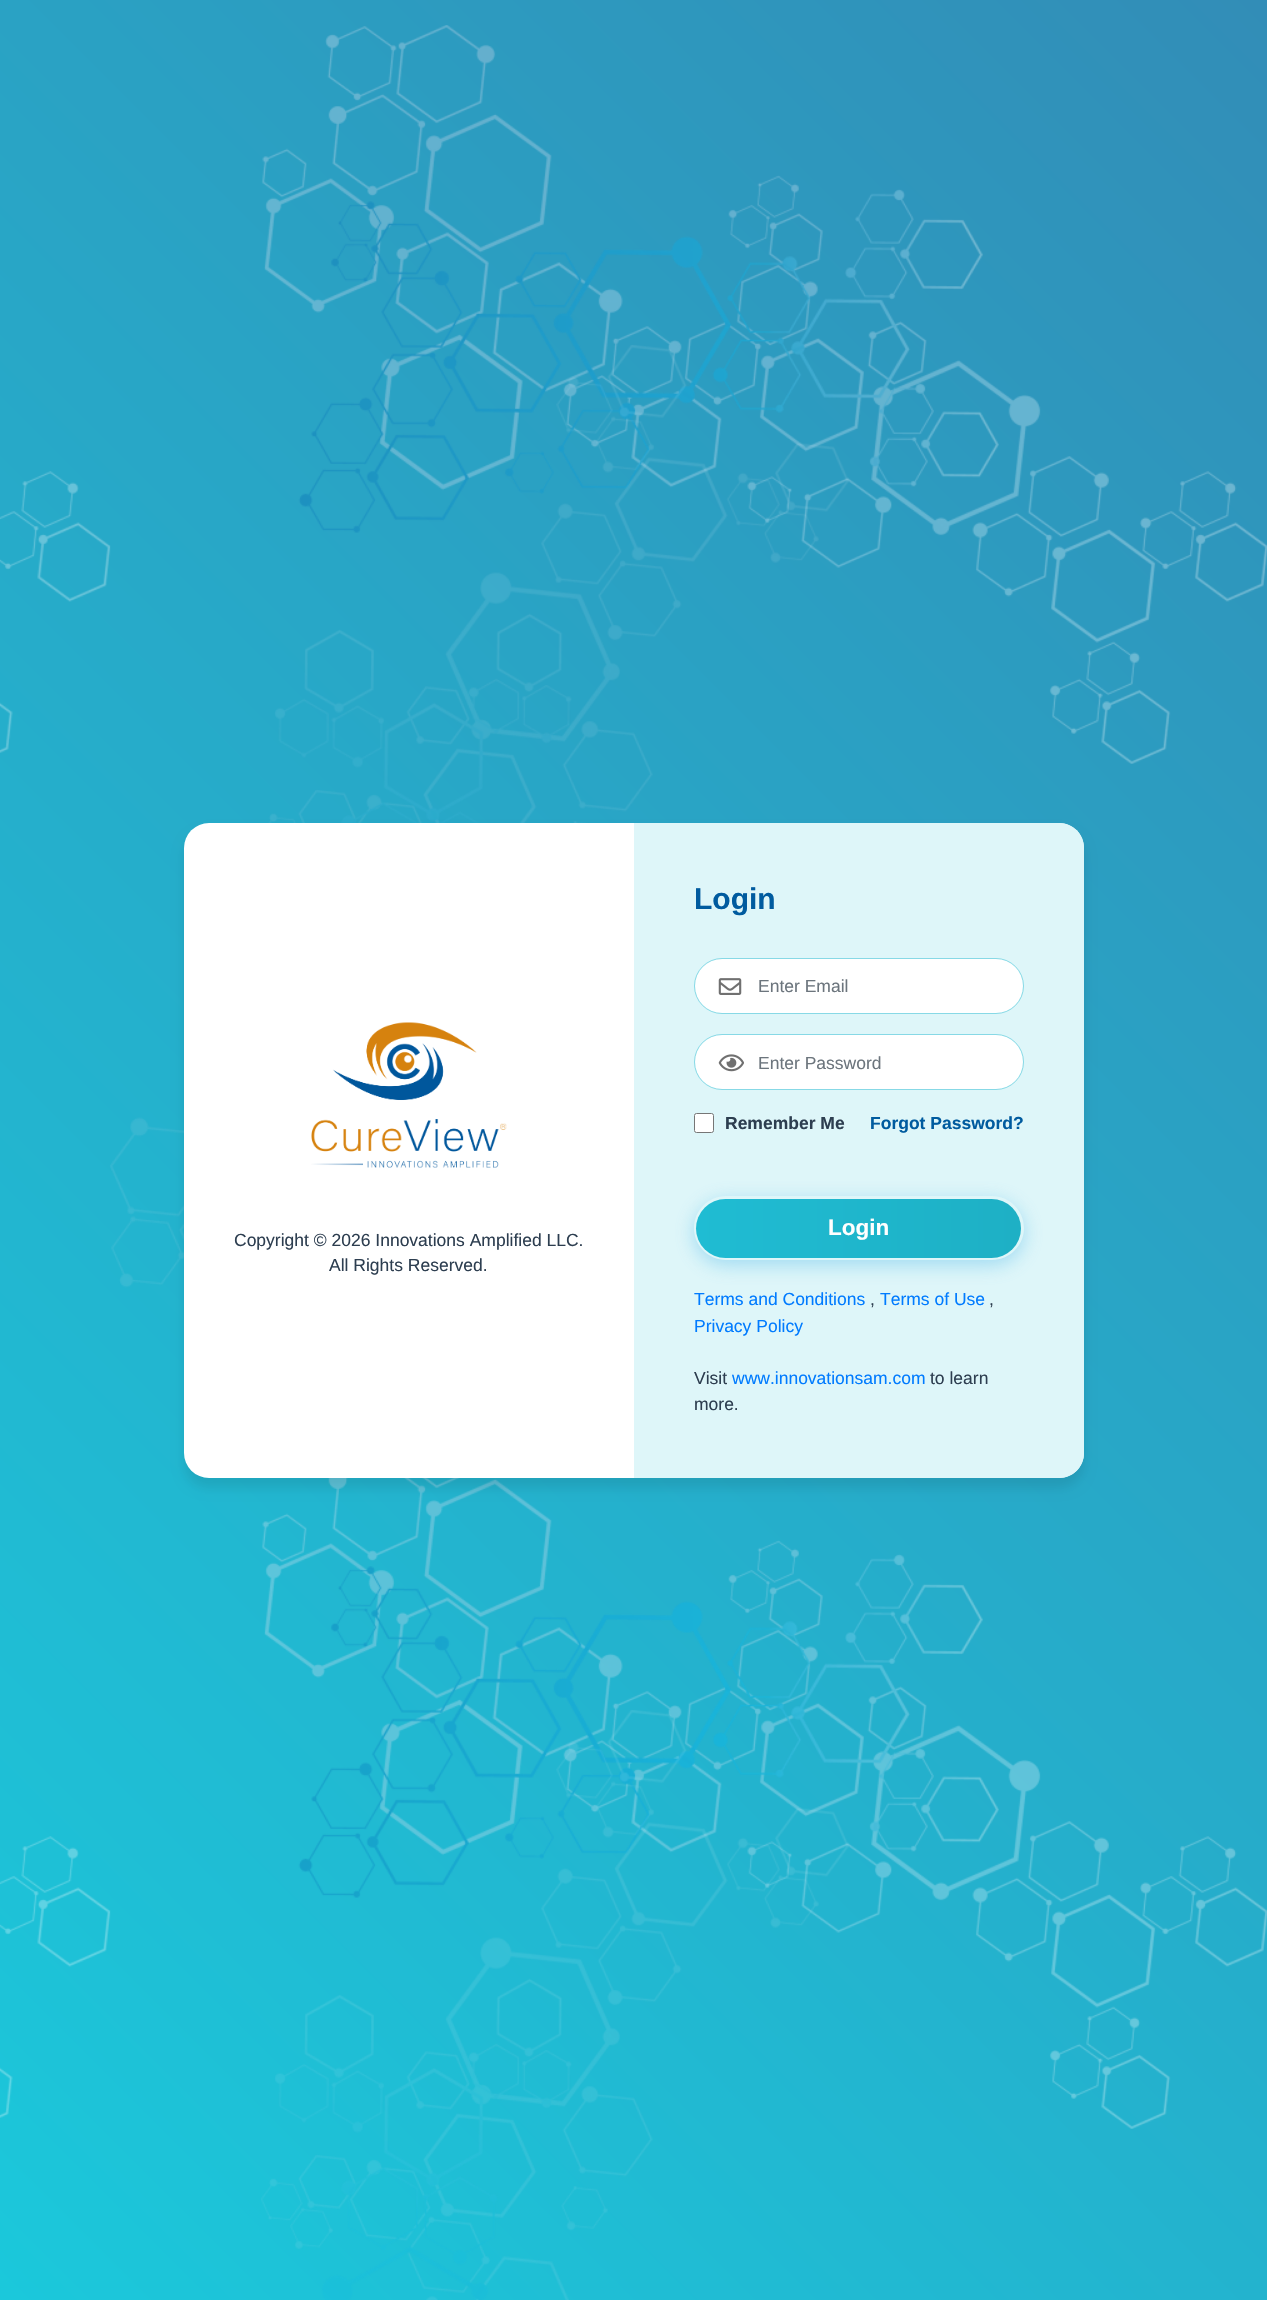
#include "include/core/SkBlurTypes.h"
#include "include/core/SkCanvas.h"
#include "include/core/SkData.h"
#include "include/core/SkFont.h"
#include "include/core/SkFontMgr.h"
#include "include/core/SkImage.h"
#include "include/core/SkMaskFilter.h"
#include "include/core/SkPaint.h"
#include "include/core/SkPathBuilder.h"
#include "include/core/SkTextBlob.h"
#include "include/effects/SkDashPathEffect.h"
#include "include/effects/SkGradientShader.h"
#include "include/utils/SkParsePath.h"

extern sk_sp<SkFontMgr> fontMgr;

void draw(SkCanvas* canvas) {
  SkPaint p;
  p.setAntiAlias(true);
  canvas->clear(SK_ColorWHITE);
  {
    const SkColor colors[] = {SkColorSetRGB(27, 200, 219), SkColorSetRGB(50, 141, 183)};
    const float stops[] = {0, 1};
    const SkPoint ends[] = {{-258, 2042}, {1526, 258}};
    p.setShader(SkGradientShader::MakeLinear(ends, colors, stops, 2, SkTileMode::kClamp));
    p.setAlpha(255);
  }
  canvas->drawRect(SkRect::MakeLTRB(0, 0, 1267, 2300), p);
  canvas->drawImageRect(SkImages::DeferredFromEncodedData(SkData::MakeFromFileName("images/1.png")), SkRect::MakeLTRB(0, 25, 1267, 2300), SkSamplingOptions());
  p.setShader(nullptr);
  p.setColor(SkColorSetARGB(23, 0, 0, 0));
  p.setMaskFilter(SkMaskFilter::MakeBlur(kNormal_SkBlurStyle, 6));
  canvas->drawRoundRect(SkRect::MakeLTRB(184, 833, 1084, 1488), 25, 25, p);
  p.setMaskFilter(nullptr);
  p.setColor(SK_ColorWHITE);
  canvas->drawRoundRect(SkRect::MakeLTRB(184, 823, 1084, 1478), 25, 25, p);
  canvas->drawImageRect(SkImages::DeferredFromEncodedData(SkData::MakeFromFileName("images/2.png")), SkRect::MakeLTRB(311, 1022, 507, 1168), SkSamplingOptions());
  p.setColor(SkColorSetRGB(222, 246, 249));
  canvas->drawPath(SkPathBuilder().moveTo(634, 823).lineTo(1059, 823).cubicTo(1073, 823, 1084, 834, 1084, 848).lineTo(1084, 1453).cubicTo(1084, 1467, 1073, 1478, 1059, 1478).lineTo(634, 1478).close().detach(), p);
  p.setColor(SK_ColorWHITE);
  canvas->drawRoundRect(SkRect::MakeLTRB(695, 959, 1023, 1013), 27, 27, p);
  p.setStyle(SkPaint::kStroke_Style);
  p.setStrokeWidth(1);
  p.setColor(SkColorSetARGB(117, 33, 183, 208));
  canvas->drawRoundRect(SkRect::MakeLTRB(694.5f, 958.5f, 1023.5f, 1013.5f), 27.5f, 27.5f, p);
  canvas->drawImageRect(SkImages::DeferredFromEncodedData(SkData::MakeFromFileName("images/3.png")), SkRect::MakeLTRB(718, 978, 742, 995), SkSamplingOptions());
  p.setStyle(SkPaint::kFill_Style);
  p.setColor(SK_ColorWHITE);
  canvas->drawRoundRect(SkRect::MakeLTRB(695, 1035, 1023, 1089), 27, 27, p);
  p.setStyle(SkPaint::kStroke_Style);
  p.setColor(SkColorSetARGB(117, 33, 183, 208));
  canvas->drawRoundRect(SkRect::MakeLTRB(694.5f, 1034.5f, 1023.5f, 1089.5f), 27.5f, 27.5f, p);
  canvas->drawImageRect(SkImages::DeferredFromEncodedData(SkData::MakeFromFileName("images/4.png")), SkRect::MakeLTRB(718, 1054, 744, 1072), SkSamplingOptions());
  p.setStyle(SkPaint::kFill_Style);
  p.setColor(SK_ColorWHITE);
  canvas->drawRoundRect(SkRect::MakeLTRB(694.5f, 1113.5f, 713.5f, 1132.5f), 2, 2, p);
  p.setStyle(SkPaint::kStroke_Style);
  p.setColor(SkColorSetRGB(118, 118, 118));
  canvas->drawRoundRect(SkRect::MakeLTRB(694.5f, 1113.5f, 713.5f, 1132.5f), 2, 2, p);
  canvas->save();
  canvas->clipPath(SkPathBuilder(SkPathFillType::kEvenOdd).moveTo(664, 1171).lineTo(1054, 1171).lineTo(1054, 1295).lineTo(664, 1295).close().moveTo(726, 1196).lineTo(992, 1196).cubicTo(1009.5f, 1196, 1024, 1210.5f, 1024, 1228).cubicTo(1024, 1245.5f, 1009.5f, 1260, 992, 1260).lineTo(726, 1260).cubicTo(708.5f, 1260, 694, 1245.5f, 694, 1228).cubicTo(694, 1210.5f, 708.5f, 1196, 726, 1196).close().detach(), true);
  p.setStyle(SkPaint::kFill_Style);
  p.setColor(SkColorSetARGB(115, 83, 184, 233));
  p.setMaskFilter(SkMaskFilter::MakeBlur(kNormal_SkBlurStyle, 9.5f));
  canvas->drawRoundRect(SkRect::MakeLTRB(694, 1201, 1024, 1265), 32, 32, p);
  p.setMaskFilter(nullptr);
  canvas->restore();
  {
    const SkColor colors[] = {SkColorSetRGB(31, 188, 211), SkColorSetRGB(30, 176, 197), SkColorSetRGB(46, 152, 190), SkColorSetRGB(86, 188, 236)};
    const float stops[] = {0, 0.33f, 0.67f, 1};
    const SkPoint ends[] = {{696, 1228}, {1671, 1228}};
    p.setShader(SkGradientShader::MakeLinear(ends, colors, stops, 4, SkTileMode::kClamp));
    p.setAlpha(255);
  }
  canvas->drawRoundRect(SkRect::MakeLTRB(696, 1199, 1021, 1258), 29.5f, 29.5f, p);
  SkFont font1(fontMgr->matchFamilyStyle("Liberation Sans", SkFontStyle::Normal()), 17.5f);
  font1.setSubpixel(true);
  p.setShader(nullptr);
  p.setColor(SkColorSetRGB(45, 62, 80));
  canvas->drawString("Copyright © 2026 Innovations Amplified LLC.", 234, 1246, font1, p);
  canvas->drawString("All Rights Reserved.", 329, 1271, font1, p);
  SkFont font2(fontMgr->matchFamilyStyle("Liberation Sans", SkFontStyle::Bold()), 30);
  font2.setSubpixel(true);
  p.setColor(SkColorSetRGB(0, 91, 159));
  canvas->drawString("Login", 694, 909, font2, p);
  p.setColor(SkColorSetRGB(108, 117, 125));
  canvas->drawString("Enter Email", 758, 992, font1, p);
  canvas->drawString("Enter Password", 758, 1069, font1, p);
  SkFont font3(fontMgr->matchFamilyStyle("Liberation Sans", SkFontStyle::Bold()), 17.5f);
  font3.setSubpixel(true);
  p.setColor(SkColorSetRGB(45, 62, 80));
  canvas->drawString("Remember Me", 725, 1129, font3, p);
  p.setColor(SkColorSetRGB(0, 91, 159));
  canvas->drawString("Forgot Password?", 870, 1129, font3, p);
  SkFont font4(fontMgr->matchFamilyStyle("Liberation Sans", SkFontStyle::Bold()), 22.5f);
  font4.setSubpixel(true);
  p.setColor(SK_ColorWHITE);
  canvas->drawString("Login", 828, 1235, font4, p);
  p.setColor(SkColorSetRGB(0, 123, 255));
  canvas->drawString("Terms and Conditions", 694, 1305, font1, p);
  p.setColor(SkColorSetRGB(45, 62, 80));
  canvas->drawString(",", 870, 1305, font1, p);
  p.setColor(SkColorSetRGB(0, 123, 255));
  canvas->drawString("Terms of Use", 880, 1305, font1, p);
  p.setColor(SkColorSetRGB(45, 62, 80));
  canvas->drawString(",", 989, 1305, font1, p);
  p.setColor(SkColorSetRGB(0, 123, 255));
  canvas->drawString("Privacy Policy", 694, 1332, font1, p);
  p.setColor(SkColorSetRGB(45, 62, 80));
  canvas->drawString("Visit", 694, 1384, font1, p);
  p.setColor(SkColorSetRGB(0, 123, 255));
  canvas->drawString("www.innovationsam.com", 732, 1384, font1, p);
  p.setColor(SkColorSetRGB(45, 62, 80));
  canvas->drawString("to learn", 930, 1384, font1, p);
  canvas->drawString("more.", 694, 1410, font1, p);
}
